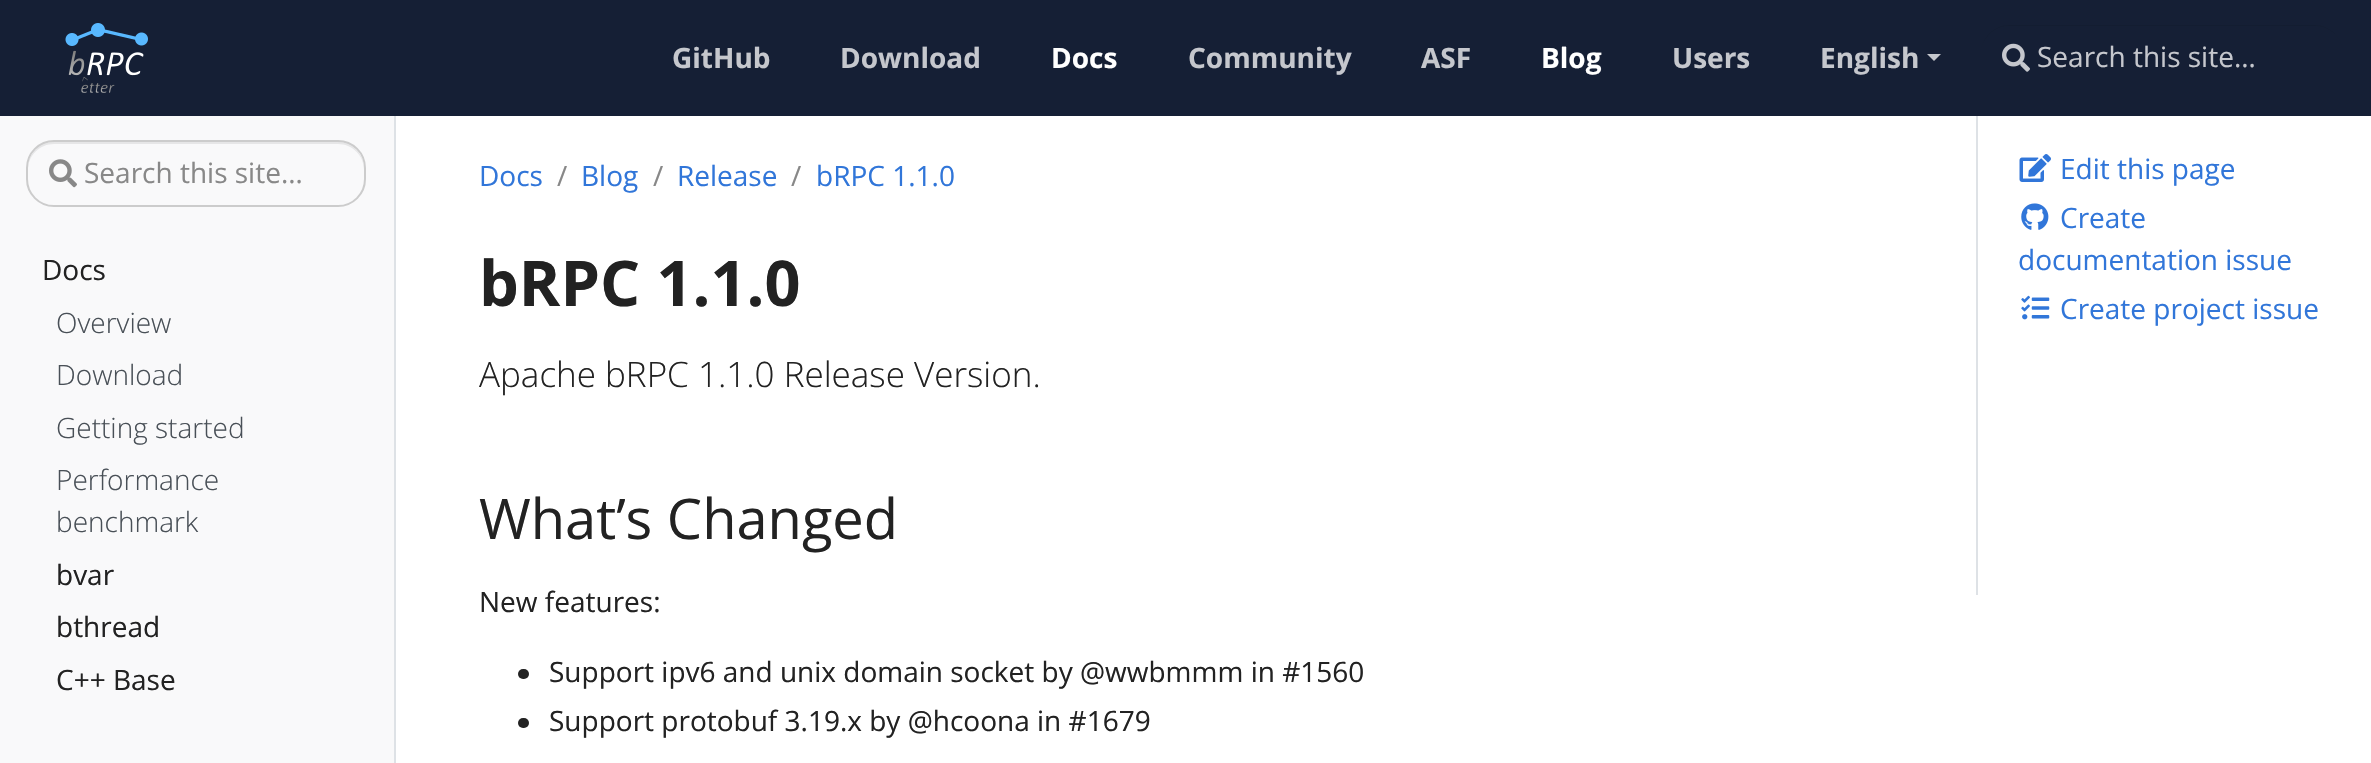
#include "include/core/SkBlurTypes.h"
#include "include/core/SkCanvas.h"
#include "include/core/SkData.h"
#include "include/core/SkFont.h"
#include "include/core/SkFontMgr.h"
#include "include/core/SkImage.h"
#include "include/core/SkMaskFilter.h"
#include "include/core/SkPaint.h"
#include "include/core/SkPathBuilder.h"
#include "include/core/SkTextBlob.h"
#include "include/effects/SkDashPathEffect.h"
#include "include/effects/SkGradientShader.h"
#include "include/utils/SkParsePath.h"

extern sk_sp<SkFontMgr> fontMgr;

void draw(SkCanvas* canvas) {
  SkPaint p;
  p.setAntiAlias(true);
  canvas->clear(SK_ColorWHITE);
  p.setColor(SkColorSetRGB(222, 226, 230));
  canvas->drawRect(SkRect::MakeLTRB(1976, 112, 1978, 595), p);
  p.setColor(SkColorSetRGB(21, 31, 53));
  canvas->drawRect(SkRect::MakeLTRB(0, 0, 2371, 116), p);
  canvas->drawImageRect(SkImages::DeferredFromEncodedData(SkData::MakeFromFileName("images/1.png")), SkRect::MakeLTRB(65, 23, 148, 93), SkSamplingOptions());
  p.setColor(SkColorSetRGB(197, 199, 205));
  canvas->drawPath(SkPathBuilder().moveTo(1927, 54).lineTo(1941, 54).lineTo(1934, 61).close().detach(), p);
  p.setColor(SkColorSetRGB(19, 29, 49));
  canvas->drawPath(SkPathBuilder().moveTo(2009, 26).lineTo(2315, 26).cubicTo(2331, 26, 2343, 39, 2343, 54).lineTo(2343, 53).cubicTo(2343, 38, 2330, 25, 2315, 25).lineTo(2009, 25).cubicTo(1994, 25, 1981, 38, 1981, 53).lineTo(1981, 54).cubicTo(1981, 39, 1994, 26, 2009, 26).close().detach(), p);
  canvas->drawImageRect(SkImages::DeferredFromEncodedData(SkData::MakeFromFileName("images/2.png")), SkRect::MakeLTRB(2002, 43, 2030, 72), SkSamplingOptions());
  p.setColor(SkColorSetRGB(249, 249, 250));
  canvas->drawRect(SkRect::MakeLTRB(0, 116, 394, 763), p);
  p.setColor(SkColorSetRGB(222, 226, 230));
  canvas->drawRect(SkRect::MakeLTRB(394, 116, 396, 763), p);
  p.setColor(SkColorSetRGB(230, 230, 231));
  canvas->drawPath(SkPathBuilder().moveTo(54, 144).lineTo(338, 144).cubicTo(352, 144, 364, 155, 364, 170).lineTo(364, 168).cubicTo(364, 154, 352, 142, 338, 142).lineTo(54, 142).cubicTo(40, 142, 28, 154, 28, 168).lineTo(28, 170).cubicTo(28, 155, 40, 144, 54, 144).close().detach(), p);
  p.setStyle(SkPaint::kStroke_Style);
  p.setStrokeWidth(2);
  p.setColor(SkColorSetRGB(204, 204, 204));
  canvas->drawRoundRect(SkRect::MakeLTRB(27, 141, 365, 206), 27, 27, p);
  canvas->drawImageRect(SkImages::DeferredFromEncodedData(SkData::MakeFromFileName("images/3.png")), SkRect::MakeLTRB(49, 159, 77, 188), SkSamplingOptions());
  p.setStyle(SkPaint::kFill_Style);
  p.setColor(SkColorSetRGB(34, 34, 34));
  canvas->drawRoundRect(SkRect::MakeLTRB(518, 669, 529, 679), 5, 5, p);
  canvas->drawRoundRect(SkRect::MakeLTRB(518, 718, 529, 728), 5, 5, p);
  canvas->drawImageRect(SkImages::DeferredFromEncodedData(SkData::MakeFromFileName("images/4.png")), SkRect::MakeLTRB(2019, 154, 2051, 182), SkSamplingOptions());
  canvas->drawImageRect(SkImages::DeferredFromEncodedData(SkData::MakeFromFileName("images/5.png")), SkRect::MakeLTRB(2021, 203, 2049, 230), SkSamplingOptions());
  canvas->drawImageRect(SkImages::DeferredFromEncodedData(SkData::MakeFromFileName("images/6.png")), SkRect::MakeLTRB(2021, 295, 2050, 320), SkSamplingOptions());
  SkFont font1(fontMgr->matchFamilyStyle("Open Sans", SkFontStyle::Bold()), 28);
  font1.setSubpixel(true);
  p.setColor(SkColorSetRGB(197, 199, 205));
  canvas->drawString("GitHub", 672, 68, font1, p);
  canvas->drawString("Download", 840, 68, font1, p);
  p.setColor(SK_ColorWHITE);
  canvas->drawString("Docs", 1051, 68, font1, p);
  p.setColor(SkColorSetRGB(197, 199, 205));
  canvas->drawString("Community", 1188, 68, font1, p);
  canvas->drawString("ASF", 1421, 68, font1, p);
  p.setColor(SK_ColorWHITE);
  canvas->drawString("Blog", 1541, 68, font1, p);
  p.setColor(SkColorSetRGB(197, 199, 205));
  canvas->drawString("Users", 1672, 68, font1, p);
  canvas->drawString("English", 1820, 68, font1, p);
  SkFont font2(fontMgr->matchFamilyStyle("Open Sans", SkFontStyle::Normal()), 28);
  font2.setSubpixel(true);
  canvas->drawString("Search this site…", 2037, 67, font2, p);
  p.setColor(SkColorSetRGB(136, 136, 136));
  canvas->drawString("Search this site…", 84, 183, font2, p);
  p.setColor(SkColorSetRGB(34, 34, 34));
  canvas->drawString("Docs", 42, 280, font2, p);
  SkFont font3(fontMgr->matchFamilyStyle("Open Sans", SkFontStyle(300, SkFontStyle::kNormal_Width, SkFontStyle::kUpright_Slant)), 28);
  font3.setSubpixel(true);
  p.setColor(SkColorSetRGB(73, 80, 87));
  canvas->drawString("Overview", 56, 333, font3, p);
  canvas->drawString("Download", 56, 385, font3, p);
  canvas->drawString("Getting started", 56, 438, font3, p);
  canvas->drawString("Performance", 56, 490, font3, p);
  canvas->drawString("benchmark", 56, 532, font3, p);
  p.setColor(SkColorSetRGB(34, 34, 34));
  canvas->drawString("bvar", 56, 585, font2, p);
  canvas->drawString("bthread", 56, 637, font2, p);
  canvas->drawString("C++ Base", 56, 690, font2, p);
  p.setColor(SkColorSetRGB(49, 118, 217));
  canvas->drawString("Docs", 479, 186, font2, p);
  p.setColor(SkColorSetRGB(136, 136, 136));
  canvas->drawString("/", 557, 186, font2, p);
  p.setColor(SkColorSetRGB(49, 118, 217));
  canvas->drawString("Blog", 581, 186, font2, p);
  p.setColor(SkColorSetRGB(136, 136, 136));
  canvas->drawString("/", 653, 186, font2, p);
  p.setColor(SkColorSetRGB(49, 118, 217));
  canvas->drawString("Release", 677, 186, font2, p);
  p.setColor(SkColorSetRGB(136, 136, 136));
  canvas->drawString("/", 791, 186, font2, p);
  p.setColor(SkColorSetRGB(49, 118, 217));
  canvas->drawString("bRPC 1.1.0", 816, 186, font2, p);
  SkFont font4(fontMgr->matchFamilyStyle("Open Sans", SkFontStyle::Bold()), 63);
  font4.setSubpixel(true);
  p.setColor(SkColorSetRGB(34, 34, 34));
  canvas->drawString("bRPC 1.1.0", 479, 306, font4, p);
  SkFont font5(fontMgr->matchFamilyStyle("Open Sans", SkFontStyle(300, SkFontStyle::kNormal_Width, SkFontStyle::kUpright_Slant)), 35);
  font5.setSubpixel(true);
  canvas->drawString("Apache bRPC 1.1.0 Release Version.", 479, 387, font5, p);
  SkFont font6(fontMgr->matchFamilyStyle("Open Sans", SkFontStyle::Normal()), 56);
  font6.setSubpixel(true);
  canvas->drawString("What’s Changed", 479, 539, font6, p);
  canvas->drawString("New features:", 479, 612, font2, p);
  canvas->drawString("Support ipv6 and unix domain socket by @wwbmmm in #1560", 549, 682, font2, p);
  canvas->drawString("Support protobuf 3.19.x by @hcoona in #1679", 549, 731, font2, p);
  p.setColor(SkColorSetRGB(49, 118, 217));
  canvas->drawString("Edit this page", 2060, 179, font2, p);
  canvas->drawString("Create", 2060, 228, font2, p);
  canvas->drawString("documentation issue", 2018, 270, font2, p);
  canvas->drawString("Create project issue", 2060, 319, font2, p);
}
